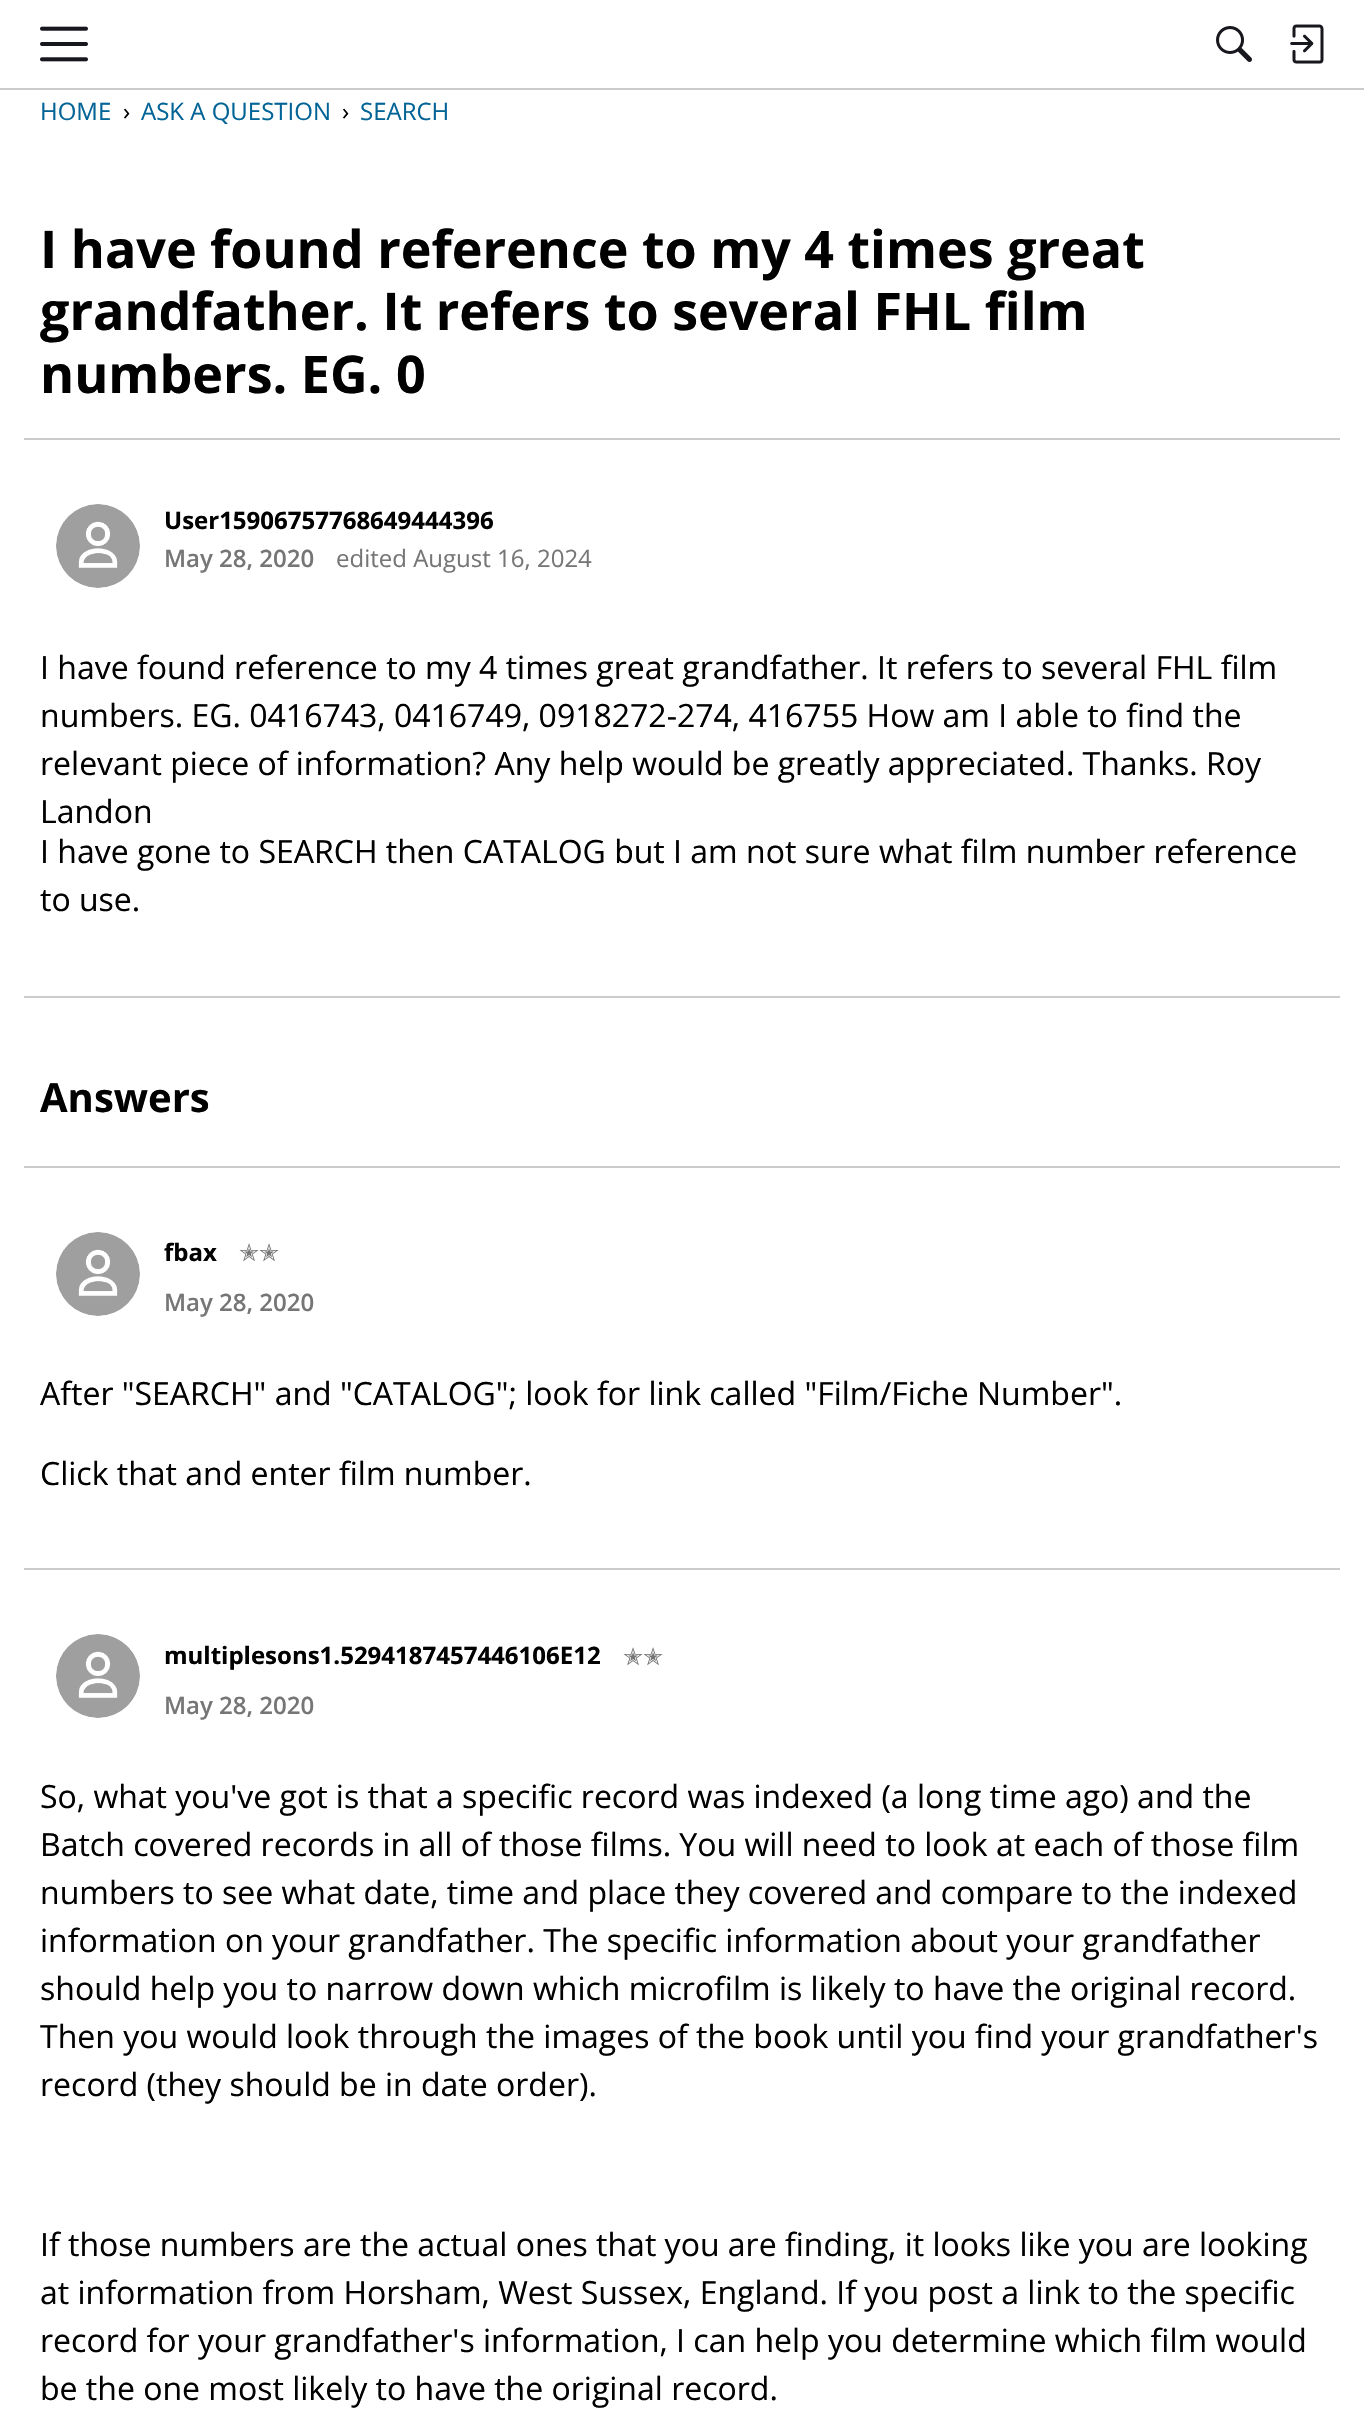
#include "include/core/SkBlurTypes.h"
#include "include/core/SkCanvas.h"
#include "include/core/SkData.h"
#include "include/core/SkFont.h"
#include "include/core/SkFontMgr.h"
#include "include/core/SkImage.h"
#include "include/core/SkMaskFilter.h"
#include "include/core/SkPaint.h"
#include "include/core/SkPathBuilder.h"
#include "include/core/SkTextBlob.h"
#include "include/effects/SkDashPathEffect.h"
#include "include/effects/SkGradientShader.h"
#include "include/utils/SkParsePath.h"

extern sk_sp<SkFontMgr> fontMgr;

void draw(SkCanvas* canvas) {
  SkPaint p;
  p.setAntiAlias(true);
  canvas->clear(SK_ColorWHITE);
  p.setColor(SkColorSetRGB(204, 204, 204));
  canvas->drawRect(SkRect::MakeLTRB(0, 88, 1364, 90), p);
  canvas->drawImageRect(SkImages::DeferredFromEncodedData(SkData::MakeFromFileName("images/1.png")), SkRect::MakeLTRB(40, 26, 88, 62), SkSamplingOptions());
  canvas->drawImageRect(SkImages::DeferredFromEncodedData(SkData::MakeFromFileName("images/2.png")), SkRect::MakeLTRB(1216, 26, 1252, 62), SkSamplingOptions());
  canvas->drawImageRect(SkImages::DeferredFromEncodedData(SkData::MakeFromFileName("images/3.png")), SkRect::MakeLTRB(1290, 24, 1324, 64), SkSamplingOptions());
  canvas->drawRect(SkRect::MakeLTRB(24, 438, 1340, 440), p);
  canvas->drawImageRect(SkImages::DeferredFromEncodedData(SkData::MakeFromFileName("images/4.png")), SkRect::MakeLTRB(56, 504, 140, 588), SkSamplingOptions());
  canvas->drawRect(SkRect::MakeLTRB(24, 996, 1340, 998), p);
  canvas->drawRect(SkRect::MakeLTRB(24, 1166, 1340, 1168), p);
  canvas->drawImageRect(SkImages::DeferredFromEncodedData(SkData::MakeFromFileName("images/5.png")), SkRect::MakeLTRB(56, 1232, 140, 1316), SkSamplingOptions());
  canvas->drawRect(SkRect::MakeLTRB(24, 1568, 1340, 1570), p);
  canvas->drawImageRect(SkImages::DeferredFromEncodedData(SkData::MakeFromFileName("images/6.png")), SkRect::MakeLTRB(56, 1634, 140, 1718), SkSamplingOptions());
  SkFont font1(fontMgr->matchFamilyStyle("Open Sans", SkFontStyle::Normal()), 24);
  font1.setSubpixel(true);
  p.setColor(SkColorSetRGB(2, 100, 150));
  canvas->drawString("HOME", 40, 120, font1, p);
  p.setColor(SK_ColorBLACK);
  canvas->drawString("›", 123, 120, font1, p);
  p.setColor(SkColorSetRGB(2, 100, 150));
  canvas->drawString("ASK A QUESTION", 141, 120, font1, p);
  p.setColor(SK_ColorBLACK);
  canvas->drawString("›", 342, 120, font1, p);
  p.setColor(SkColorSetRGB(2, 100, 150));
  canvas->drawString("SEARCH", 360, 120, font1, p);
  SkFont font2(fontMgr->matchFamilyStyle("Open Sans", SkFontStyle::Bold()), 52);
  font2.setSubpixel(true);
  p.setColor(SK_ColorBLACK);
  canvas->drawString("I have found reference to my 4 times great", 40, 268, font2, p);
  canvas->drawString("grandfather. It refers to several FHL film", 40, 330, font2, p);
  canvas->drawString("numbers. EG. 0", 40, 393, font2, p);
  SkFont font3(fontMgr->matchFamilyStyle("Open Sans", SkFontStyle::Bold()), 24);
  font3.setSubpixel(true);
  canvas->drawString("User15906757768649444396", 164, 529, font3, p);
  SkFont font4(fontMgr->matchFamilyStyle("Open Sans", SkFontStyle(600, SkFontStyle::kNormal_Width, SkFontStyle::kUpright_Slant)), 24);
  font4.setSubpixel(true);
  p.setColor(SkColorSetRGB(118, 118, 118));
  canvas->drawString("May 28, 2020", 164, 567, font4, p);
  canvas->drawString("edited August 16, 2024", 336, 567, font1, p);
  SkFont font5(fontMgr->matchFamilyStyle("Open Sans", SkFontStyle::Normal()), 32);
  font5.setSubpixel(true);
  p.setColor(SK_ColorBLACK);
  canvas->drawString("I have found reference to my 4 times great grandfather. It refers to several FHL film", 40, 679, font5, p);
  canvas->drawString("numbers. EG. 0416743, 0416749, 0918272-274, 416755 How am I able to find the", 40, 727, font5, p);
  canvas->drawString("relevant piece of information? Any help would be greatly appreciated. Thanks. Roy", 40, 775, font5, p);
  canvas->drawString("Landon", 40, 823, font5, p);
  canvas->drawString("I have gone to SEARCH then CATALOG but I am not sure what film number reference", 40, 863, font5, p);
  canvas->drawString("to use.", 40, 911, font5, p);
  SkFont font6(fontMgr->matchFamilyStyle("Open Sans", SkFontStyle::Bold()), 40);
  font6.setSubpixel(true);
  canvas->drawString("Answers", 40, 1112, font6, p);
  canvas->drawString("fbax", 164, 1261, font3, p);
  SkFont font7(fontMgr->matchFamilyStyle("DejaVu Sans", SkFontStyle::Normal()), 24);
  font7.setSubpixel(true);
  p.setColor(SkColorSetRGB(118, 118, 118));
  canvas->drawString("✭✭", 239, 1261, font7, p);
  canvas->drawString("May 28, 2020", 164, 1311, font4, p);
  p.setColor(SK_ColorBLACK);
  canvas->drawString("After \"SEARCH\" and \"CATALOG\"; look for link called \"Film/Fiche Number\".", 40, 1405, font5, p);
  canvas->drawString("Click that and enter film number.", 40, 1485, font5, p);
  canvas->drawString("multiplesons1.5294187457446106E12", 164, 1664, font3, p);
  p.setColor(SkColorSetRGB(118, 118, 118));
  canvas->drawString("✭✭", 623, 1665, font7, p);
  canvas->drawString("May 28, 2020", 164, 1714, font4, p);
  p.setColor(SK_ColorBLACK);
  canvas->drawString("So, what you've got is that a specific record was indexed (a long time ago) and the", 40, 1808, font5, p);
  canvas->drawString("Batch covered records in all of those films. You will need to look at each of those film", 40, 1856, font5, p);
  canvas->drawString("numbers to see what date, time and place they covered and compare to the indexed", 40, 1904, font5, p);
  canvas->drawString("information on your grandfather. The specific information about your grandfather", 40, 1952, font5, p);
  canvas->drawString("should help you to narrow down which microfilm is likely to have the original record.", 40, 2000, font5, p);
  canvas->drawString("Then you would look through the images of the book until you find your grandfather's", 40, 2048, font5, p);
  canvas->drawString("record (they should be in date order).", 40, 2096, font5, p);
  canvas->drawString("If those numbers are the actual ones that you are finding, it looks like you are looking", 40, 2256, font5, p);
  canvas->drawString("at information from Horsham, West Sussex, England. If you post a link to the specific", 40, 2304, font5, p);
  canvas->drawString("record for your grandfather's information, I can help you determine which film would", 40, 2352, font5, p);
  canvas->drawString("be the one most likely to have the original record.", 40, 2400, font5, p);
}
